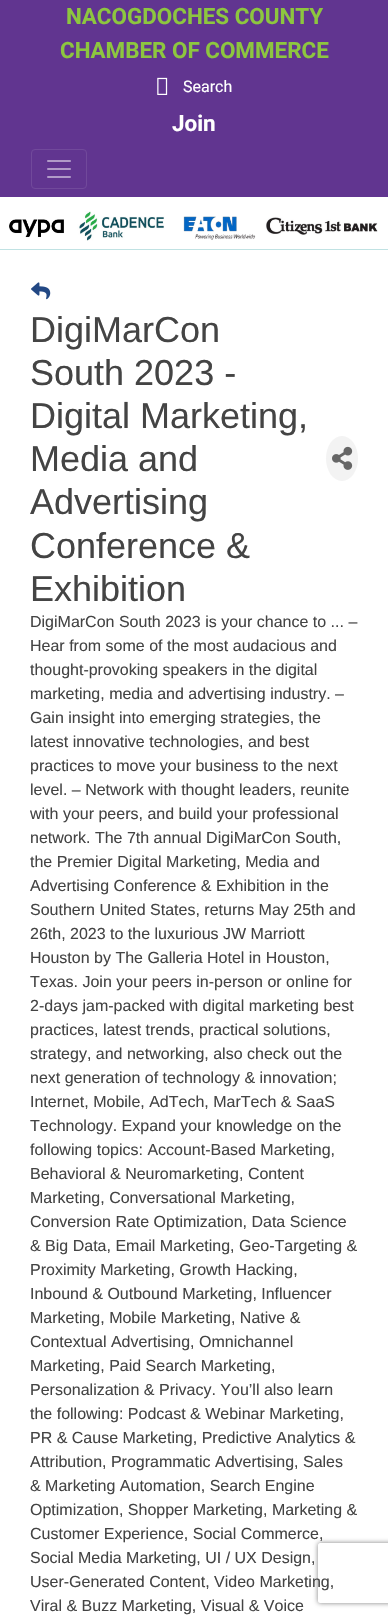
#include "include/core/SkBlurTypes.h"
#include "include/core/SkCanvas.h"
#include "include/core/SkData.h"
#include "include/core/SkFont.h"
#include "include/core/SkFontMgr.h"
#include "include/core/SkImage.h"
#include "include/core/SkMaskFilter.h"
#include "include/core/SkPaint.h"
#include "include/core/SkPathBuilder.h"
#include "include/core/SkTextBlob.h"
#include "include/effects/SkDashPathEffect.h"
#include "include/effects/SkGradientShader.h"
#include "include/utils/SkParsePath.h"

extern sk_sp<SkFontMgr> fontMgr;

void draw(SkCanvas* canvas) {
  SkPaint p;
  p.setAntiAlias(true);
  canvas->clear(SkColorSetRGB(97, 53, 144));
  canvas->drawImageRect(SkImages::DeferredFromEncodedData(SkData::MakeFromFileName("images/1.png")), SkRect::MakeLTRB(157, 77, 168, 95), SkSamplingOptions());
  p.setStyle(SkPaint::kStroke_Style);
  p.setStrokeWidth(1);
  p.setColor(SkColorSetRGB(113, 73, 155));
  canvas->drawRoundRect(SkRect::MakeLTRB(31.5f, 149.5f, 86.5f, 188.5f), 3.5f, 3.5f, p);
  canvas->drawImageRect(SkImages::DeferredFromEncodedData(SkData::MakeFromFileName("images/2.png")), SkRect::MakeLTRB(47, 160, 71, 178), SkSamplingOptions());
  p.setStyle(SkPaint::kFill_Style);
  p.setColor(SK_ColorWHITE);
  canvas->drawRect(SkRect::MakeLTRB(0, 197, 388, 1617), p);
  p.setColor(SkColorSetRGB(192, 226, 227));
  canvas->drawRect(SkRect::MakeLTRB(0, 249, 388, 250), p);
  canvas->drawImageRect(SkImages::DeferredFromEncodedData(SkData::MakeFromFileName("images/3.png")), SkRect::MakeLTRB(9, 211, 378, 241), SkSamplingOptions());
  canvas->drawImageRect(SkImages::DeferredFromEncodedData(SkData::MakeFromFileName("images/4.png")), SkRect::MakeLTRB(31, 282, 51, 300), SkSamplingOptions());
  p.setColor(SkColorSetRGB(243, 243, 243));
  canvas->drawOval(SkRect::MakeLTRB(326, 436, 358, 481), p);
  canvas->drawImageRect(SkImages::DeferredFromEncodedData(SkData::MakeFromFileName("images/5.png")), SkRect::MakeLTRB(332, 446, 353, 470), SkSamplingOptions());
  canvas->save();
  canvas->clipPath(SkPathBuilder(SkPathFillType::kEvenOdd).moveTo(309, 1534).lineTo(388, 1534).lineTo(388, 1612).lineTo(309, 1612).close().moveTo(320, 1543).lineTo(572, 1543).cubicTo(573, 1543, 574, 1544, 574, 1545).lineTo(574, 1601).cubicTo(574, 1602, 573, 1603, 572, 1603).lineTo(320, 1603).cubicTo(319, 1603, 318, 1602, 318, 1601).lineTo(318, 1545).cubicTo(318, 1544, 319, 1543, 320, 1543).close().detach(), true);
  p.setColor(SkColorSetRGB(128, 128, 128));
  p.setMaskFilter(SkMaskFilter::MakeBlur(kNormal_SkBlurStyle, 2.5f));
  canvas->drawRoundRect(SkRect::MakeLTRB(318, 1543, 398, 1603), 2, 2, p);
  p.setMaskFilter(nullptr);
  canvas->restore();
  SkFont font1(fontMgr->matchFamilyStyle("Roboto", SkFontStyle::Bold()), 22.4f);
  font1.setSubpixel(true);
  p.setColor(SkColorSetRGB(141, 198, 63));
  canvas->drawString("NACOGDOCHES COUNTY", 66, 24, font1, p);
  canvas->drawString("CHAMBER OF COMMERCE", 60, 58, font1, p);
  SkFont font2(fontMgr->matchFamilyStyle("Roboto", SkFontStyle::Normal()), 16);
  font2.setSubpixel(true);
  p.setColor(SK_ColorWHITE);
  canvas->drawString("Search", 183, 92, font2, p);
  canvas->drawString("Join", 172, 131, font1, p);
  SkFont font3(fontMgr->matchFamilyStyle("Liberation Sans", SkFontStyle::Normal()), 36);
  font3.setSubpixel(true);
  p.setColor(SkColorSetRGB(68, 68, 68));
  canvas->drawString("DigiMarCon", 30, 342, font3, p);
  canvas->drawString("South 2023 -", 30, 385, font3, p);
  canvas->drawString("Digital Marketing,", 30, 428, font3, p);
  canvas->drawString("Media and", 30, 471, font3, p);
  canvas->drawString("Advertising", 30, 514, font3, p);
  canvas->drawString("Conference &", 30, 558, font3, p);
  canvas->drawString("Exhibition", 30, 601, font3, p);
  SkFont font4(fontMgr->matchFamilyStyle("Liberation Sans", SkFontStyle::Normal()), 16);
  font4.setSubpixel(true);
  canvas->drawString("DigiMarCon South 2023 is your chance to ... –", 30, 627, font4, p);
  canvas->drawString("Hear from some of the most audacious and", 30, 651, font4, p);
  canvas->drawString("thought-provoking speakers in the digital", 30, 675, font4, p);
  canvas->drawString("marketing, media and advertising industry. –", 30, 699, font4, p);
  canvas->drawString("Gain insight into emerging strategies, the", 30, 723, font4, p);
  canvas->drawString("latest innovative technologies, and best", 30, 747, font4, p);
  canvas->drawString("practices to move your business to the next", 30, 771, font4, p);
  canvas->drawString("level. – Network with thought leaders, reunite", 30, 795, font4, p);
  canvas->drawString("with your peers, and build your professional", 30, 819, font4, p);
  canvas->drawString("network. The 7th annual DigiMarCon South,", 30, 843, font4, p);
  canvas->drawString("the Premier Digital Marketing, Media and", 30, 867, font4, p);
  canvas->drawString("Advertising Conference & Exhibition in the", 30, 891, font4, p);
  canvas->drawString("Southern United States, returns May 25th and", 30, 915, font4, p);
  canvas->drawString("26th, 2023 to the luxurious JW Marriott", 30, 939, font4, p);
  canvas->drawString("Houston by The Galleria Hotel in Houston,", 30, 963, font4, p);
  canvas->drawString("Texas. Join your peers in-person or online for", 30, 987, font4, p);
  canvas->drawString("2-days jam-packed with digital marketing best", 30, 1011, font4, p);
  canvas->drawString("practices, latest trends, practical solutions,", 30, 1035, font4, p);
  canvas->drawString("strategy, and networking, also check out the", 30, 1059, font4, p);
  canvas->drawString("next generation of technology & innovation;", 30, 1083, font4, p);
  canvas->drawString("Internet, Mobile, AdTech, MarTech & SaaS", 30, 1107, font4, p);
  canvas->drawString("Technology. Expand your knowledge on the", 30, 1131, font4, p);
  canvas->drawString("following topics: Account-Based Marketing,", 30, 1155, font4, p);
  canvas->drawString("Behavioral & Neuromarketing, Content", 30, 1179, font4, p);
  canvas->drawString("Marketing, Conversational Marketing,", 30, 1203, font4, p);
  canvas->drawString("Conversion Rate Optimization, Data Science", 30, 1227, font4, p);
  canvas->drawString("& Big Data, Email Marketing, Geo-Targeting &", 30, 1251, font4, p);
  canvas->drawString("Proximity Marketing, Growth Hacking,", 30, 1275, font4, p);
  canvas->drawString("Inbound & Outbound Marketing, Influencer", 30, 1299, font4, p);
  canvas->drawString("Marketing, Mobile Marketing, Native &", 30, 1323, font4, p);
  canvas->drawString("Contextual Advertising, Omnichannel", 30, 1347, font4, p);
  canvas->drawString("Marketing, Paid Search Marketing,", 30, 1371, font4, p);
  canvas->drawString("Personalization & Privacy. You’ll also learn", 30, 1395, font4, p);
  canvas->drawString("the following: Podcast & Webinar Marketing,", 30, 1419, font4, p);
  canvas->drawString("PR & Cause Marketing, Predictive Analytics &", 30, 1443, font4, p);
  canvas->drawString("Attribution, Programmatic Advertising, Sales", 30, 1467, font4, p);
  canvas->drawString("& Marketing Automation, Search Engine", 30, 1491, font4, p);
  canvas->drawString("Optimization, Shopper Marketing, Marketing &", 30, 1515, font4, p);
  canvas->drawString("Customer Experience, Social Commerce,", 30, 1539, font4, p);
  canvas->drawString("Social Media Marketing, UI / UX Design,", 30, 1563, font4, p);
  canvas->drawString("User-Generated Content, Video Marketing,", 30, 1587, font4, p);
  canvas->drawString("Viral & Buzz Marketing, Visual & Voice", 30, 1611, font4, p);
}
